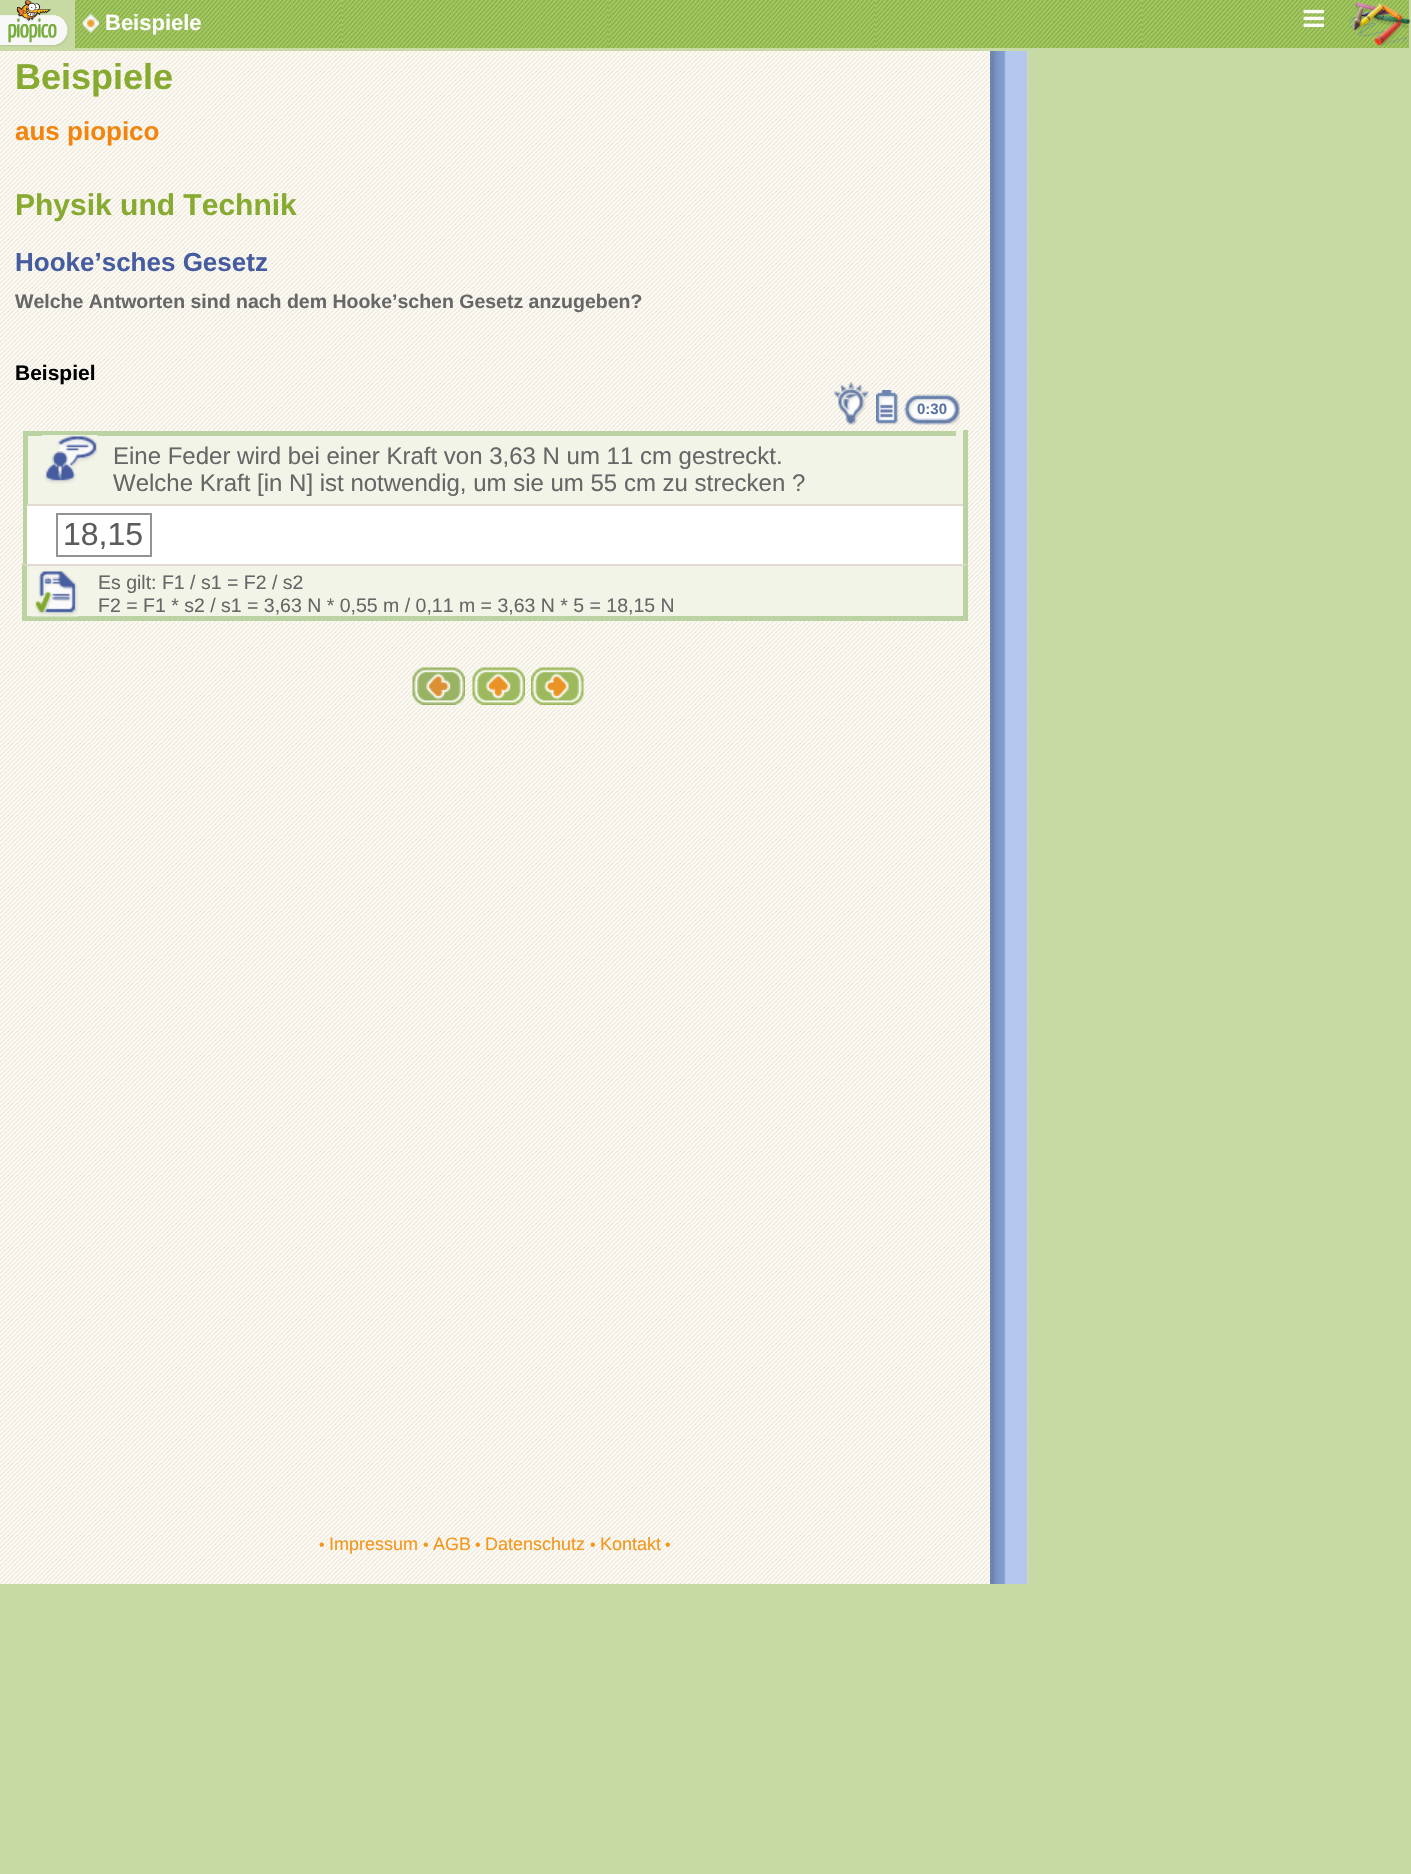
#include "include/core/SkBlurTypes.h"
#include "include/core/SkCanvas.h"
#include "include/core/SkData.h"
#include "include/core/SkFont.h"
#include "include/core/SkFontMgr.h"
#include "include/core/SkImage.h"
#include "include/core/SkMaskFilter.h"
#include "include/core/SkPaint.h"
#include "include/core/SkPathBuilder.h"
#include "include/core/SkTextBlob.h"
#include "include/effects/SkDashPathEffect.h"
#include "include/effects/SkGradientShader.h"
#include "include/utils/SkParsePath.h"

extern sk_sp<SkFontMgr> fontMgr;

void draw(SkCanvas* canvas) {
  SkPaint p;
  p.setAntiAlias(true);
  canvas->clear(SkColorSetRGB(200, 218, 164));
  canvas->drawImageRect(SkImages::DeferredFromEncodedData(SkData::MakeFromFileName("images/1.png")), SkRect::MakeLTRB(0, 0, 69, 47), SkSamplingOptions());
  p.setColor(SkColorSetRGB(156, 191, 92));
  canvas->drawRect(SkRect::MakeLTRB(75, 0, 1409, 48), p);
  canvas->drawImageRect(SkImages::DeferredFromEncodedData(SkData::MakeFromFileName("images/2.png")), SkRect::MakeLTRB(75, 0, 1409, 48), SkSamplingOptions());
  canvas->drawImageRect(SkImages::DeferredFromEncodedData(SkData::MakeFromFileName("images/3.png")), SkRect::MakeLTRB(82, 13, 99, 33), SkSamplingOptions());
  canvas->drawImageRect(SkImages::DeferredFromEncodedData(SkData::MakeFromFileName("images/4.png")), SkRect::MakeLTRB(1303, 9, 1325, 27), SkSamplingOptions());
  canvas->drawImageRect(SkImages::DeferredFromEncodedData(SkData::MakeFromFileName("images/5.png")), SkRect::MakeLTRB(1348, 2, 1411, 46), SkSamplingOptions());
  canvas->drawImageRect(SkImages::DeferredFromEncodedData(SkData::MakeFromFileName("images/6.png")), SkRect::MakeLTRB(0, 51, 1028, 1584), SkSamplingOptions());
  canvas->drawImageRect(SkImages::DeferredFromEncodedData(SkData::MakeFromFileName("images/7.png")), SkRect::MakeLTRB(990, 51, 1028, 1584), SkSamplingOptions());
  canvas->drawImageRect(SkImages::DeferredFromEncodedData(SkData::MakeFromFileName("images/8.png")), SkRect::MakeLTRB(834, 382, 869, 425), SkSamplingOptions());
  canvas->drawImageRect(SkImages::DeferredFromEncodedData(SkData::MakeFromFileName("images/9.png")), SkRect::MakeLTRB(876, 390, 899, 425), SkSamplingOptions());
  canvas->drawImageRect(SkImages::DeferredFromEncodedData(SkData::MakeFromFileName("images/10.png")), SkRect::MakeLTRB(904, 394, 960, 425), SkSamplingOptions());
  p.setColor(SkColorSetRGB(242, 244, 232));
  canvas->drawRect(SkRect::MakeLTRB(28, 436, 956, 504), p);
  p.setColor(SkColorSetRGB(187, 211, 162));
  canvas->drawRect(SkRect::MakeLTRB(23, 431, 956, 436), p);
  canvas->drawRect(SkRect::MakeLTRB(23, 431, 28, 504), p);
  canvas->drawImageRect(SkImages::DeferredFromEncodedData(SkData::MakeFromFileName("images/11.png")), SkRect::MakeLTRB(42, 435, 98, 484), SkSamplingOptions());
  p.setColor(SkColorSetRGB(242, 244, 232));
  canvas->drawRect(SkRect::MakeLTRB(956, 431, 963, 504), p);
  p.setColor(SkColorSetRGB(187, 211, 162));
  canvas->drawRect(SkRect::MakeLTRB(963, 430, 968, 564), p);
  canvas->drawRect(SkRect::MakeLTRB(23, 504, 27, 564), p);
  p.setColor(SK_ColorWHITE);
  canvas->drawRect(SkRect::MakeLTRB(27, 506, 963, 564), p);
  p.setColor(SkColorSetRGB(226, 218, 208));
  canvas->drawRect(SkRect::MakeLTRB(27, 504, 963, 506), p);
  p.setStyle(SkPaint::kStroke_Style);
  p.setStrokeWidth(2);
  p.setColor(SkColorSetRGB(147, 147, 147));
  canvas->drawRect(SkRect::MakeLTRB(57, 514, 151, 556), p);
  p.setStyle(SkPaint::kFill_Style);
  p.setColor(SkColorSetRGB(242, 244, 232));
  canvas->drawRect(SkRect::MakeLTRB(23, 564, 968, 616), p);
  p.setColor(SkColorSetRGB(226, 218, 208));
  canvas->drawPath(SkPathBuilder().moveTo(22, 564).lineTo(82, 564).lineTo(82, 566).lineTo(27, 566).close().detach(), p);
  p.setColor(SkColorSetRGB(187, 211, 162));
  canvas->drawPath(SkPathBuilder().moveTo(22, 616).lineTo(22, 564).lineTo(27, 566).lineTo(27, 616).close().detach(), p);
  canvas->drawRect(SkRect::MakeLTRB(22, 616, 968, 621), p);
  canvas->drawImageRect(SkImages::DeferredFromEncodedData(SkData::MakeFromFileName("images/12.png")), SkRect::MakeLTRB(31, 570, 78, 617), SkSamplingOptions());
  p.setColor(SkColorSetRGB(226, 218, 208));
  canvas->drawPath(SkPathBuilder().moveTo(82, 564).lineTo(968, 564).lineTo(963, 566).lineTo(82, 566).close().detach(), p);
  p.setColor(SkColorSetRGB(187, 211, 162));
  canvas->drawPath(SkPathBuilder().moveTo(968, 564).lineTo(968, 616).lineTo(963, 616).lineTo(963, 566).close().detach(), p);
  canvas->drawImageRect(SkImages::DeferredFromEncodedData(SkData::MakeFromFileName("images/13.png")), SkRect::MakeLTRB(412, 667, 465, 705), SkSamplingOptions());
  canvas->drawImageRect(SkImages::DeferredFromEncodedData(SkData::MakeFromFileName("images/14.png")), SkRect::MakeLTRB(472, 667, 525, 705), SkSamplingOptions());
  canvas->drawImageRect(SkImages::DeferredFromEncodedData(SkData::MakeFromFileName("images/15.png")), SkRect::MakeLTRB(531, 667, 584, 705), SkSamplingOptions());
  SkFont font1(fontMgr->matchFamilyStyle("Liberation Sans", SkFontStyle::Bold()), 22);
  font1.setSubpixel(true);
  p.setColor(SkColorSetRGB(252, 253, 250));
  canvas->drawString("Beispiele", 105, 30, font1, p);
  SkFont font2(fontMgr->matchFamilyStyle("Liberation Sans", SkFontStyle::Bold()), 36);
  font2.setSubpixel(true);
  p.setColor(SkColorSetRGB(135, 170, 49));
  canvas->drawString("Beispiele", 15, 89, font2, p);
  SkFont font3(fontMgr->matchFamilyStyle("Liberation Sans", SkFontStyle::Bold()), 26);
  font3.setSubpixel(true);
  p.setColor(SkColorSetRGB(243, 133, 15));
  canvas->drawString("aus piopico", 15, 140, font3, p);
  SkFont font4(fontMgr->matchFamilyStyle("Liberation Sans", SkFontStyle::Bold()), 30);
  font4.setSubpixel(true);
  p.setColor(SkColorSetRGB(135, 170, 49));
  canvas->drawString("Physik und Technik", 15, 215, font4, p);
  p.setColor(SkColorSetRGB(69, 92, 160));
  canvas->drawString("Hooke’sches Gesetz", 15, 271, font3, p);
  SkFont font5(fontMgr->matchFamilyStyle("Liberation Sans", SkFontStyle::Bold()), 19.5f);
  font5.setSubpixel(true);
  p.setColor(SkColorSetRGB(103, 103, 103));
  canvas->drawString("Welche Antworten sind nach dem Hooke’schen Gesetz anzugeben?", 15, 308, font5, p);
  SkFont font6(fontMgr->matchFamilyStyle("Liberation Sans", SkFontStyle::Bold()), 21);
  font6.setSubpixel(true);
  p.setColor(SK_ColorBLACK);
  canvas->drawString("Beispiel", 15, 380, font6, p);
  SkFont font7(fontMgr->matchFamilyStyle("Liberation Sans", SkFontStyle::Bold()), 15);
  font7.setSubpixel(true);
  p.setColor(SkColorSetRGB(89, 115, 165));
  canvas->drawString("0:30", 917, 414, font7, p);
  SkFont font8(fontMgr->matchFamilyStyle("Liberation Sans", SkFontStyle::Normal()), 24);
  font8.setSubpixel(true);
  p.setColor(SkColorSetRGB(103, 103, 103));
  canvas->drawString("Eine Feder wird bei einer Kraft von 3,63 N um 11 cm gestreckt.", 113, 464, font8, p);
  canvas->drawString("Welche Kraft [in N] ist notwendig, um sie um 55 cm zu strecken ?", 113, 491, font8, p);
  SkFont font9(fontMgr->matchFamilyStyle("Liberation Sans", SkFontStyle::Normal()), 32);
  font9.setSubpixel(true);
  p.setColor(SkColorSetRGB(92, 92, 92));
  canvas->drawString("18,15", 63, 545, font9, p);
  SkFont font10(fontMgr->matchFamilyStyle("Liberation Sans", SkFontStyle::Normal()), 19.5f);
  font10.setSubpixel(true);
  p.setColor(SkColorSetRGB(103, 103, 103));
  canvas->drawString("Es gilt: F1 / s1 = F2 / s2", 98, 589, font10, p);
  canvas->drawString("F2 = F1 * s2 / s1 = 3,63 N * 0,55 m / 0,11 m = 3,63 N * 5 = 18,15 N", 98, 612, font10, p);
  SkFont font11(fontMgr->matchFamilyStyle("Liberation Sans", SkFontStyle::Normal()), 16);
  font11.setSubpixel(true);
  p.setColor(SkColorSetRGB(245, 149, 25));
  canvas->drawString("•", 319, 1550, font11, p);
  SkFont font12(fontMgr->matchFamilyStyle("Liberation Sans", SkFontStyle::Normal()), 18);
  font12.setSubpixel(true);
  canvas->drawString("Impressum", 329, 1550, font12, p);
  canvas->drawString("•", 423, 1550, font11, p);
  canvas->drawString("AGB", 433, 1550, font12, p);
  canvas->drawString("•", 475, 1550, font11, p);
  canvas->drawString("Datenschutz", 485, 1550, font12, p);
  canvas->drawString("•", 590, 1550, font11, p);
  canvas->drawString("Kontakt", 600, 1550, font12, p);
  canvas->drawString("•", 665, 1550, font11, p);
}
